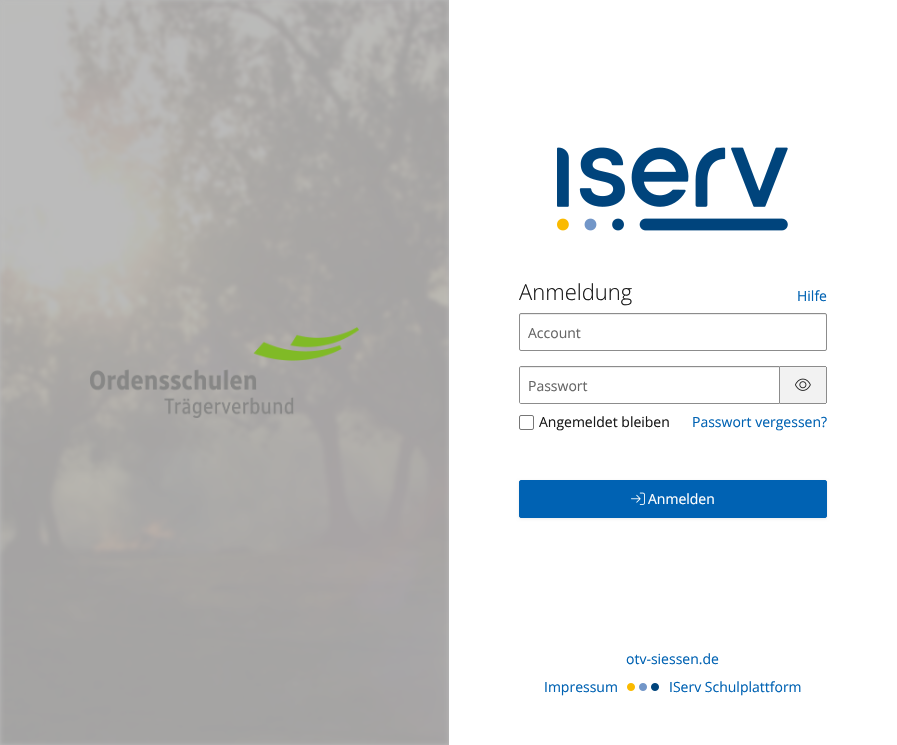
#include "include/core/SkBlurTypes.h"
#include "include/core/SkCanvas.h"
#include "include/core/SkData.h"
#include "include/core/SkFont.h"
#include "include/core/SkFontMgr.h"
#include "include/core/SkImage.h"
#include "include/core/SkMaskFilter.h"
#include "include/core/SkPaint.h"
#include "include/core/SkPathBuilder.h"
#include "include/core/SkTextBlob.h"
#include "include/effects/SkDashPathEffect.h"
#include "include/effects/SkGradientShader.h"
#include "include/utils/SkParsePath.h"

extern sk_sp<SkFontMgr> fontMgr;

void draw(SkCanvas* canvas) {
  SkPaint p;
  p.setAntiAlias(true);
  canvas->clear(SkColorSetRGB(187, 187, 187));
  canvas->drawImageRect(SkImages::DeferredFromEncodedData(SkData::MakeFromFileName("images/1.png")), SkRect::MakeLTRB(0, 0, 449, 745), SkSamplingOptions());
  canvas->drawImageRect(SkImages::DeferredFromEncodedData(SkData::MakeFromFileName("images/2.png")), SkRect::MakeLTRB(90, 327, 359, 418), SkSamplingOptions());
  p.setColor(SK_ColorWHITE);
  canvas->drawRect(SkRect::MakeLTRB(449, 0, 897, 745), p);
  canvas->drawImageRect(SkImages::DeferredFromEncodedData(SkData::MakeFromFileName("images/3.png")), SkRect::MakeLTRB(557, 147, 788, 231), SkSamplingOptions());
  p.setColor(SkColorSetRGB(236, 236, 236));
  canvas->drawPath(SkPathBuilder().moveTo(521, 315).lineTo(825, 315).lineTo(826, 316).lineTo(826, 314).lineTo(521, 314).cubicTo(520, 314, 520, 315, 520, 316).close().detach(), p);
  p.setStyle(SkPaint::kStroke_Style);
  p.setStrokeWidth(1);
  p.setColor(SkColorSetRGB(140, 140, 140));
  canvas->drawRoundRect(SkRect::MakeLTRB(519.5f, 313.5f, 826.5f, 350.5f), 1.5f, 1.5f, p);
  p.setStyle(SkPaint::kFill_Style);
  p.setColor(SkColorSetRGB(236, 236, 236));
  canvas->drawPath(SkPathBuilder().moveTo(521, 368).lineTo(779, 368).lineTo(779, 367).lineTo(521, 367).lineTo(520, 367).lineTo(520, 369).cubicTo(520, 368, 520, 368, 521, 368).close().detach(), p);
  p.setStyle(SkPaint::kStroke_Style);
  p.setColor(SkColorSetRGB(140, 140, 140));
  canvas->drawPath(SkPathBuilder().moveTo(521, 366.5f).lineTo(779.5f, 366.5f).lineTo(779.5f, 403.5f).lineTo(521, 403.5f).cubicTo(520, 403.5f, 519.5f, 403, 519.5f, 402).lineTo(519.5f, 368).cubicTo(519.5f, 367, 520, 366.5f, 521, 366.5f).close().detach(), p);
  p.setStyle(SkPaint::kFill_Style);
  p.setColor(SkColorSetRGB(242, 242, 242));
  canvas->drawPath(SkPathBuilder().moveTo(780, 366).lineTo(825, 366).cubicTo(826, 366, 827, 367, 827, 368).lineTo(827, 402).cubicTo(827, 403, 826, 404, 825, 404).lineTo(780, 404).close().detach(), p);
  p.setColor(SkColorSetRGB(140, 140, 140));
  canvas->drawRect(SkRect::MakeLTRB(780, 366, 826, 367), p);
  canvas->drawRect(SkRect::MakeLTRB(826, 367, 827, 403), p);
  canvas->drawRect(SkRect::MakeLTRB(780, 403, 826, 404), p);
  canvas->drawImageRect(SkImages::DeferredFromEncodedData(SkData::MakeFromFileName("images/4.png")), SkRect::MakeLTRB(795, 378, 811, 391), SkSamplingOptions());
  p.setStyle(SkPaint::kStroke_Style);
  p.setColor(SkColorSetRGB(118, 118, 118));
  canvas->drawRoundRect(SkRect::MakeLTRB(519.5f, 415.5f, 533.5f, 429.5f), 1.5f, 1.5f, p);
  p.setStyle(SkPaint::kFill_Style);
  p.setColor(SkColorSetARGB(20, 0, 0, 0));
  p.setMaskFilter(SkMaskFilter::MakeBlur(kNormal_SkBlurStyle, 1.5f));
  canvas->drawRoundRect(SkRect::MakeLTRB(519, 481, 827, 519), 2, 2, p);
  p.setMaskFilter(nullptr);
  p.setColor(SkColorSetRGB(0, 98, 179));
  canvas->drawRoundRect(SkRect::MakeLTRB(519.5f, 480.5f, 826.5f, 517.5f), 1.5f, 1.5f, p);
  p.setStyle(SkPaint::kStroke_Style);
  canvas->drawRoundRect(SkRect::MakeLTRB(519.5f, 480.5f, 826.5f, 517.5f), 1.5f, 1.5f, p);
  canvas->drawImageRect(SkImages::DeferredFromEncodedData(SkData::MakeFromFileName("images/5.png")), SkRect::MakeLTRB(631, 492, 645, 505), SkSamplingOptions());
  canvas->drawImageRect(SkImages::DeferredFromEncodedData(SkData::MakeFromFileName("images/6.png")), SkRect::MakeLTRB(627, 683, 635, 691), SkSamplingOptions());
  canvas->drawImageRect(SkImages::DeferredFromEncodedData(SkData::MakeFromFileName("images/7.png")), SkRect::MakeLTRB(639, 683, 647, 691), SkSamplingOptions());
  canvas->drawImageRect(SkImages::DeferredFromEncodedData(SkData::MakeFromFileName("images/8.png")), SkRect::MakeLTRB(651, 683, 659, 691), SkSamplingOptions());
  SkFont font1(fontMgr->matchFamilyStyle("Open Sans", SkFontStyle(300, SkFontStyle::kNormal_Width, SkFontStyle::kUpright_Slant)), 22);
  font1.setSubpixel(true);
  p.setStyle(SkPaint::kFill_Style);
  p.setColor(SkColorSetRGB(26, 26, 26));
  canvas->drawString("Anmeldung", 519, 300, font1, p);
  SkFont font2(fontMgr->matchFamilyStyle("Open Sans", SkFontStyle::Normal()), 14);
  font2.setSubpixel(true);
  p.setColor(SkColorSetRGB(0, 98, 179));
  canvas->drawString("Hilfe", 797, 301, font2, p);
  p.setColor(SkColorSetRGB(102, 102, 102));
  canvas->drawString("Account", 528, 338, font2, p);
  canvas->drawString("Passwort", 528, 391, font2, p);
  p.setColor(SkColorSetRGB(26, 26, 26));
  canvas->drawString("Angemeldet bleiben", 539, 427, font2, p);
  p.setColor(SkColorSetRGB(0, 98, 179));
  canvas->drawString("Passwort vergessen?", 692, 427, font2, p);
  p.setColor(SK_ColorWHITE);
  canvas->drawString("Anmelden", 648, 504, font2, p);
  p.setColor(SkColorSetRGB(0, 98, 179));
  canvas->drawString("otv-siessen.de", 626, 664, font2, p);
  canvas->drawString("Impressum", 544, 692, font2, p);
  canvas->drawString("IServ Schulplattform", 669, 692, font2, p);
}
